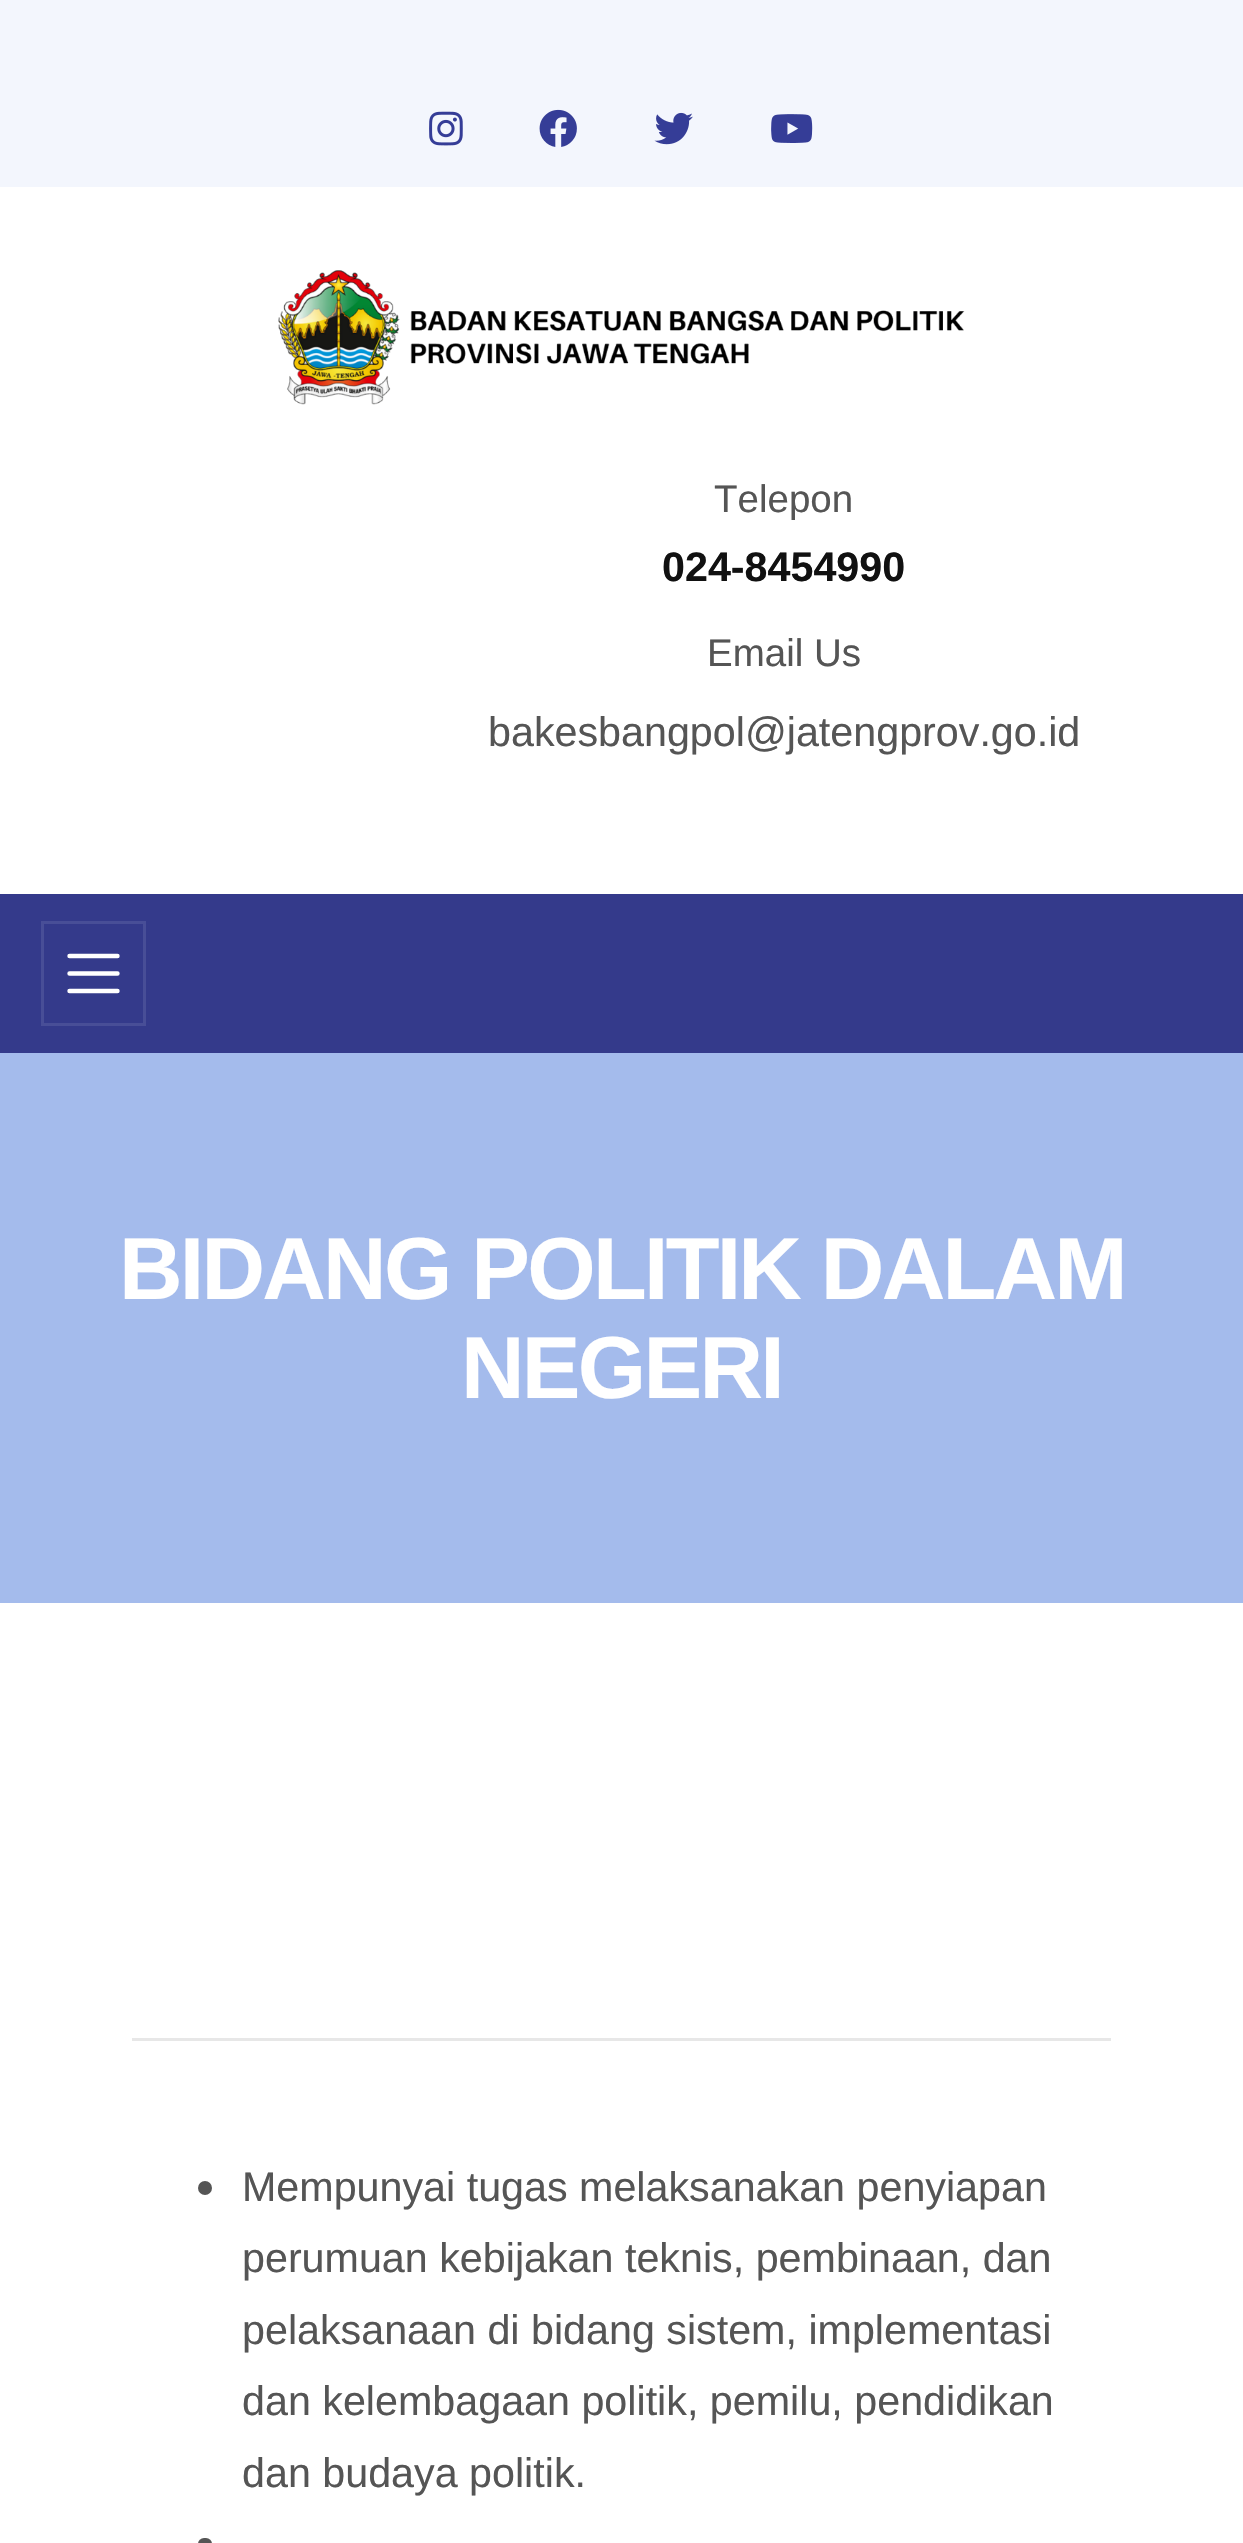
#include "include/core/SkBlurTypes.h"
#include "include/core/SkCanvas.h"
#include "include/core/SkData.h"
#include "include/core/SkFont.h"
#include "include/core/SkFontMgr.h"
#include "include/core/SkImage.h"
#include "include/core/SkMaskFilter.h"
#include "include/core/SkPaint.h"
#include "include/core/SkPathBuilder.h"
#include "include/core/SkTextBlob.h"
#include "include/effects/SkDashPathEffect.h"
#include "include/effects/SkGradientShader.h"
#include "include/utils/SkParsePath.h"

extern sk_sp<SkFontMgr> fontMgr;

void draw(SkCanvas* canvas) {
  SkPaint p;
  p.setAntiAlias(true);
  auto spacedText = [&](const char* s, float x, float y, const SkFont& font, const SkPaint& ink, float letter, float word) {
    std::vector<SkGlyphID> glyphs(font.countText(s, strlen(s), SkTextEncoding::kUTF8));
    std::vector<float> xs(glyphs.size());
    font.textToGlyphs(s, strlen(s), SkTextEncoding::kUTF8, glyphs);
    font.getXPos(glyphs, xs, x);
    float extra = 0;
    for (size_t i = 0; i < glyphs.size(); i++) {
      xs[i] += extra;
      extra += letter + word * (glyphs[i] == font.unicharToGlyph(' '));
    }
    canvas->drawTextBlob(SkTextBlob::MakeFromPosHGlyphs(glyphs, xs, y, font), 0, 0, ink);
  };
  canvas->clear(SK_ColorWHITE);
  p.setColor(SkColorSetRGB(243, 246, 253));
  canvas->drawRect(SkRect::MakeLTRB(0, 0, 1243, 187), p);
  canvas->drawImageRect(SkImages::DeferredFromEncodedData(SkData::MakeFromFileName("images/1.png")), SkRect::MakeLTRB(429, 111, 463, 146), SkSamplingOptions());
  canvas->drawImageRect(SkImages::DeferredFromEncodedData(SkData::MakeFromFileName("images/2.png")), SkRect::MakeLTRB(539, 109, 577, 147), SkSamplingOptions());
  canvas->drawImageRect(SkImages::DeferredFromEncodedData(SkData::MakeFromFileName("images/3.png")), SkRect::MakeLTRB(654, 112, 693, 145), SkSamplingOptions());
  canvas->drawImageRect(SkImages::DeferredFromEncodedData(SkData::MakeFromFileName("images/4.png")), SkRect::MakeLTRB(771, 114, 813, 143), SkSamplingOptions());
  p.setColor(SkColorSetRGB(52, 58, 139));
  canvas->drawRect(SkRect::MakeLTRB(0, 894, 1243, 1053), p);
  canvas->drawImageRect(SkImages::DeferredFromEncodedData(SkData::MakeFromFileName("images/5.png")), SkRect::MakeLTRB(278, 270, 965, 405), SkSamplingOptions());
  p.setStyle(SkPaint::kStroke_Style);
  p.setStrokeWidth(3);
  p.setColor(SkColorSetRGB(72, 78, 151));
  canvas->drawRect(SkRect::MakeLTRB(42.5f, 922.5f, 144.5f, 1024.5f), p);
  p.setStrokeWidth(4.4f);
  p.setStrokeCap(SkPaint::kRound_Cap);
  p.setColor(SK_ColorWHITE);
  canvas->drawPath(SkPathBuilder().moveTo(69.5f, 956).lineTo(117.5f, 956).moveTo(69.5f, 973.5f).lineTo(117.5f, 973.5f).moveTo(69.5f, 991).lineTo(117.5f, 991).detach(), p);
  p.setStyle(SkPaint::kFill_Style);
  p.setColor(SkColorSetRGB(164, 187, 236));
  canvas->drawRect(SkRect::MakeLTRB(0, 1053, 1243, 1603), p);
  p.setColor(SkColorSetRGB(231, 231, 231));
  canvas->drawRect(SkRect::MakeLTRB(132, 2038, 1111, 2041), p);
  p.setColor(SkColorSetRGB(85, 85, 85));
  canvas->drawCircle(205, 2188, 7, p);
  canvas->drawRoundRect(SkRect::MakeLTRB(198, 2538, 212, 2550), 7, 7, p);
  SkFont font1(fontMgr->matchFamilyStyle("Liberation Sans", SkFontStyle::Normal()), 38.5f);
  font1.setSubpixel(true);
  canvas->drawString("Telepon", 714, 512, font1, p);
  SkFont font2(fontMgr->matchFamilyStyle("Liberation Sans", SkFontStyle::Bold()), 41.25f);
  font2.setSubpixel(true);
  p.setColor(SkColorSetRGB(17, 17, 17));
  canvas->drawString("024-8454990", 662, 581, font2, p);
  p.setColor(SkColorSetRGB(85, 85, 85));
  canvas->drawString("Email Us", 707, 666, font1, p);
  SkFont font3(fontMgr->matchFamilyStyle("Liberation Sans", SkFontStyle::Normal()), 41.25f);
  font3.setSubpixel(true);
  canvas->drawString("bakesbangpol@jatengprov.go.id", 488, 746, font3, p);
  SkFont font4(fontMgr->matchFamilyStyle("Liberation Sans", SkFontStyle::Bold()), 88);
  font4.setSubpixel(true);
  p.setColor(SK_ColorWHITE);
  spacedText("BIDANG POLITIK DALAM", 119, 1299, font4, p, -2.75f, 0);
  spacedText("NEGERI", 461, 1398, font4, p, -2.75f, 0);
  p.setColor(SkColorSetRGB(85, 85, 85));
  canvas->drawString("Mempunyai tugas melaksanakan penyiapan", 242, 2201, font3, p);
  canvas->drawString("perumuan kebijakan teknis, pembinaan, dan", 242, 2272, font3, p);
  canvas->drawString("pelaksanaan di bidang sistem, implementasi", 242, 2344, font3, p);
  canvas->drawString("dan kelembagaan politik, pemilu, pendidikan", 242, 2415, font3, p);
  canvas->drawString("dan budaya politik.", 242, 2487, font3, p);
}
